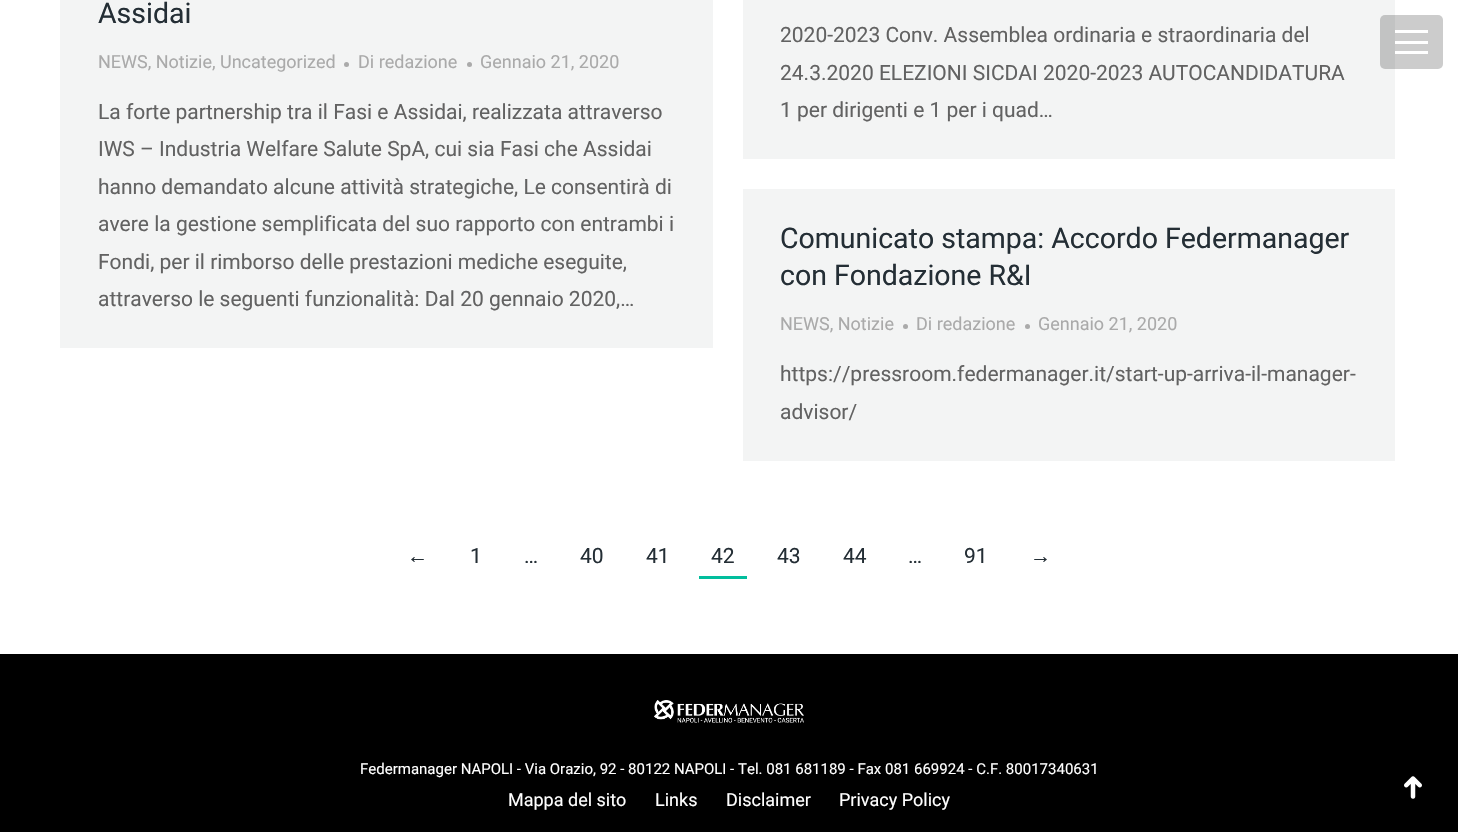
#include "include/core/SkBlurTypes.h"
#include "include/core/SkCanvas.h"
#include "include/core/SkData.h"
#include "include/core/SkFont.h"
#include "include/core/SkFontMgr.h"
#include "include/core/SkImage.h"
#include "include/core/SkMaskFilter.h"
#include "include/core/SkPaint.h"
#include "include/core/SkPathBuilder.h"
#include "include/core/SkTextBlob.h"
#include "include/effects/SkDashPathEffect.h"
#include "include/effects/SkGradientShader.h"
#include "include/utils/SkParsePath.h"

extern sk_sp<SkFontMgr> fontMgr;

void draw(SkCanvas* canvas) {
  SkPaint p;
  p.setAntiAlias(true);
  canvas->clear(SK_ColorWHITE);
  p.setColor(SkColorSetRGB(243, 244, 244));
  canvas->drawRect(SkRect::MakeLTRB(60, 0, 713, 348), p);
  p.setColor(SkColorSetRGB(170, 170, 170));
  canvas->drawCircle(346.5f, 64.5f, 2.5f, p);
  canvas->drawCircle(469.5f, 64.5f, 2.5f, p);
  p.setColor(SkColorSetRGB(243, 244, 244));
  canvas->drawRect(SkRect::MakeLTRB(743, 0, 1395, 159), p);
  canvas->drawRect(SkRect::MakeLTRB(743, 189, 1395, 461), p);
  p.setColor(SkColorSetRGB(170, 170, 170));
  canvas->drawCircle(905.5f, 326.5f, 2.5f, p);
  canvas->drawCircle(1027.5f, 326.5f, 2.5f, p);
  p.setColor(SkColorSetRGB(1, 190, 157));
  canvas->drawRect(SkRect::MakeLTRB(699, 576, 747, 579), p);
  p.setColor(SkColorSetARGB(51, 0, 0, 0));
  canvas->drawRoundRect(SkRect::MakeLTRB(1380, 15, 1443, 69), 5, 5, p);
  p.setColor(SK_ColorWHITE);
  canvas->drawRect(SkRect::MakeLTRB(1395, 30, 1428, 33), p);
  canvas->drawRect(SkRect::MakeLTRB(1395, 41, 1428, 44), p);
  canvas->drawRect(SkRect::MakeLTRB(1395, 51, 1428, 54), p);
  p.setColor(SK_ColorBLACK);
  canvas->drawRect(SkRect::MakeLTRB(0, 654, 1458, 832), p);
  canvas->drawImageRect(SkImages::DeferredFromEncodedData(SkData::MakeFromFileName("images/1.png")), SkRect::MakeLTRB(654, 700, 804, 723), SkSamplingOptions());
  canvas->drawImageRect(SkImages::DeferredFromEncodedData(SkData::MakeFromFileName("images/2.png")), SkRect::MakeLTRB(1404, 776, 1422, 799), SkSamplingOptions());
  SkFont font1(fontMgr->matchFamilyStyle("Roboto", SkFontStyle::Normal()), 28.5f);
  font1.setSubpixel(true);
  p.setColor(SkColorSetRGB(36, 46, 53));
  canvas->drawString("Assidai", 98, 23, font1, p);
  SkFont font2(fontMgr->matchFamilyStyle("Roboto", SkFontStyle::Normal()), 18);
  font2.setSubpixel(true);
  p.setColor(SkColorSetRGB(170, 170, 170));
  canvas->drawString("NEWS, Notizie, Uncategorized", 98, 68, font2, p);
  canvas->drawString("Di redazione", 358, 68, font2, p);
  canvas->drawString("Gennaio 21, 2020", 480, 68, font2, p);
  SkFont font3(fontMgr->matchFamilyStyle("Roboto", SkFontStyle::Normal()), 21);
  font3.setSubpixel(true);
  p.setColor(SkColorSetRGB(98, 98, 98));
  canvas->drawString("La forte partnership tra il Fasi e Assidai, realizzata attraverso", 98, 119, font3, p);
  canvas->drawString("IWS – Industria Welfare Salute SpA, cui sia Fasi che Assidai", 98, 156, font3, p);
  canvas->drawString("hanno demandato alcune attività strategiche, Le consentirà di", 98, 194, font3, p);
  canvas->drawString("avere la gestione semplificata del suo rapporto con entrambi i", 98, 231, font3, p);
  canvas->drawString("Fondi, per il rimborso delle prestazioni mediche eseguite,", 98, 269, font3, p);
  canvas->drawString("attraverso le seguenti funzionalità: Dal 20 gennaio 2020,…", 98, 306, font3, p);
  canvas->drawString("2020-2023 Conv. Assemblea ordinaria e straordinaria del", 780, 42, font3, p);
  canvas->drawString("24.3.2020 ELEZIONI SICDAI 2020-2023 AUTOCANDIDATURA", 780, 80, font3, p);
  canvas->drawString("1 per dirigenti e 1 per i quad…", 780, 117, font3, p);
  p.setColor(SkColorSetRGB(36, 46, 53));
  canvas->drawString("Comunicato stampa: Accordo Federmanager", 780, 248, font1, p);
  canvas->drawString("con Fondazione R&I", 780, 285, font1, p);
  p.setColor(SkColorSetRGB(170, 170, 170));
  canvas->drawString("NEWS, Notizie", 780, 330, font2, p);
  canvas->drawString("Di redazione", 916, 330, font2, p);
  canvas->drawString("Gennaio 21, 2020", 1038, 330, font2, p);
  p.setColor(SkColorSetRGB(98, 98, 98));
  canvas->drawString("https://pressroom.federmanager.it/start-up-arriva-il-manager-", 780, 381, font3, p);
  canvas->drawString("advisor/", 780, 419, font3, p);
  SkFont font4(fontMgr->matchFamilyStyle("Liberation Sans", SkFontStyle::Normal()), 21);
  font4.setSubpixel(true);
  p.setColor(SkColorSetRGB(36, 46, 53));
  canvas->drawString("←", 407, 563, font4, p);
  canvas->drawString("1", 470, 563, font3, p);
  canvas->drawString("…", 524, 563, font3, p);
  canvas->drawString("40", 580, 563, font3, p);
  canvas->drawString("41", 646, 563, font3, p);
  canvas->drawString("42", 711, 563, font3, p);
  canvas->drawString("43", 777, 563, font3, p);
  canvas->drawString("44", 843, 563, font3, p);
  canvas->drawString("…", 908, 563, font3, p);
  canvas->drawString("91", 964, 563, font3, p);
  canvas->drawString("→", 1030, 563, font4, p);
  SkFont font5(fontMgr->matchFamilyStyle("Roboto", SkFontStyle::Normal()), 15);
  font5.setSubpixel(true);
  p.setColor(SK_ColorWHITE);
  canvas->drawString("Federmanager NAPOLI - Via Orazio, 92 - 80122 NAPOLI - Tel. 081 681189 - Fax 081 669924 - C.F. 80017340631", 360, 774, font5, p);
  canvas->drawString("Mappa del sito", 508, 806, font2, p);
  canvas->drawString("Links", 655, 806, font2, p);
  canvas->drawString("Disclaimer", 726, 806, font2, p);
  canvas->drawString("Privacy Policy", 839, 806, font2, p);
}
